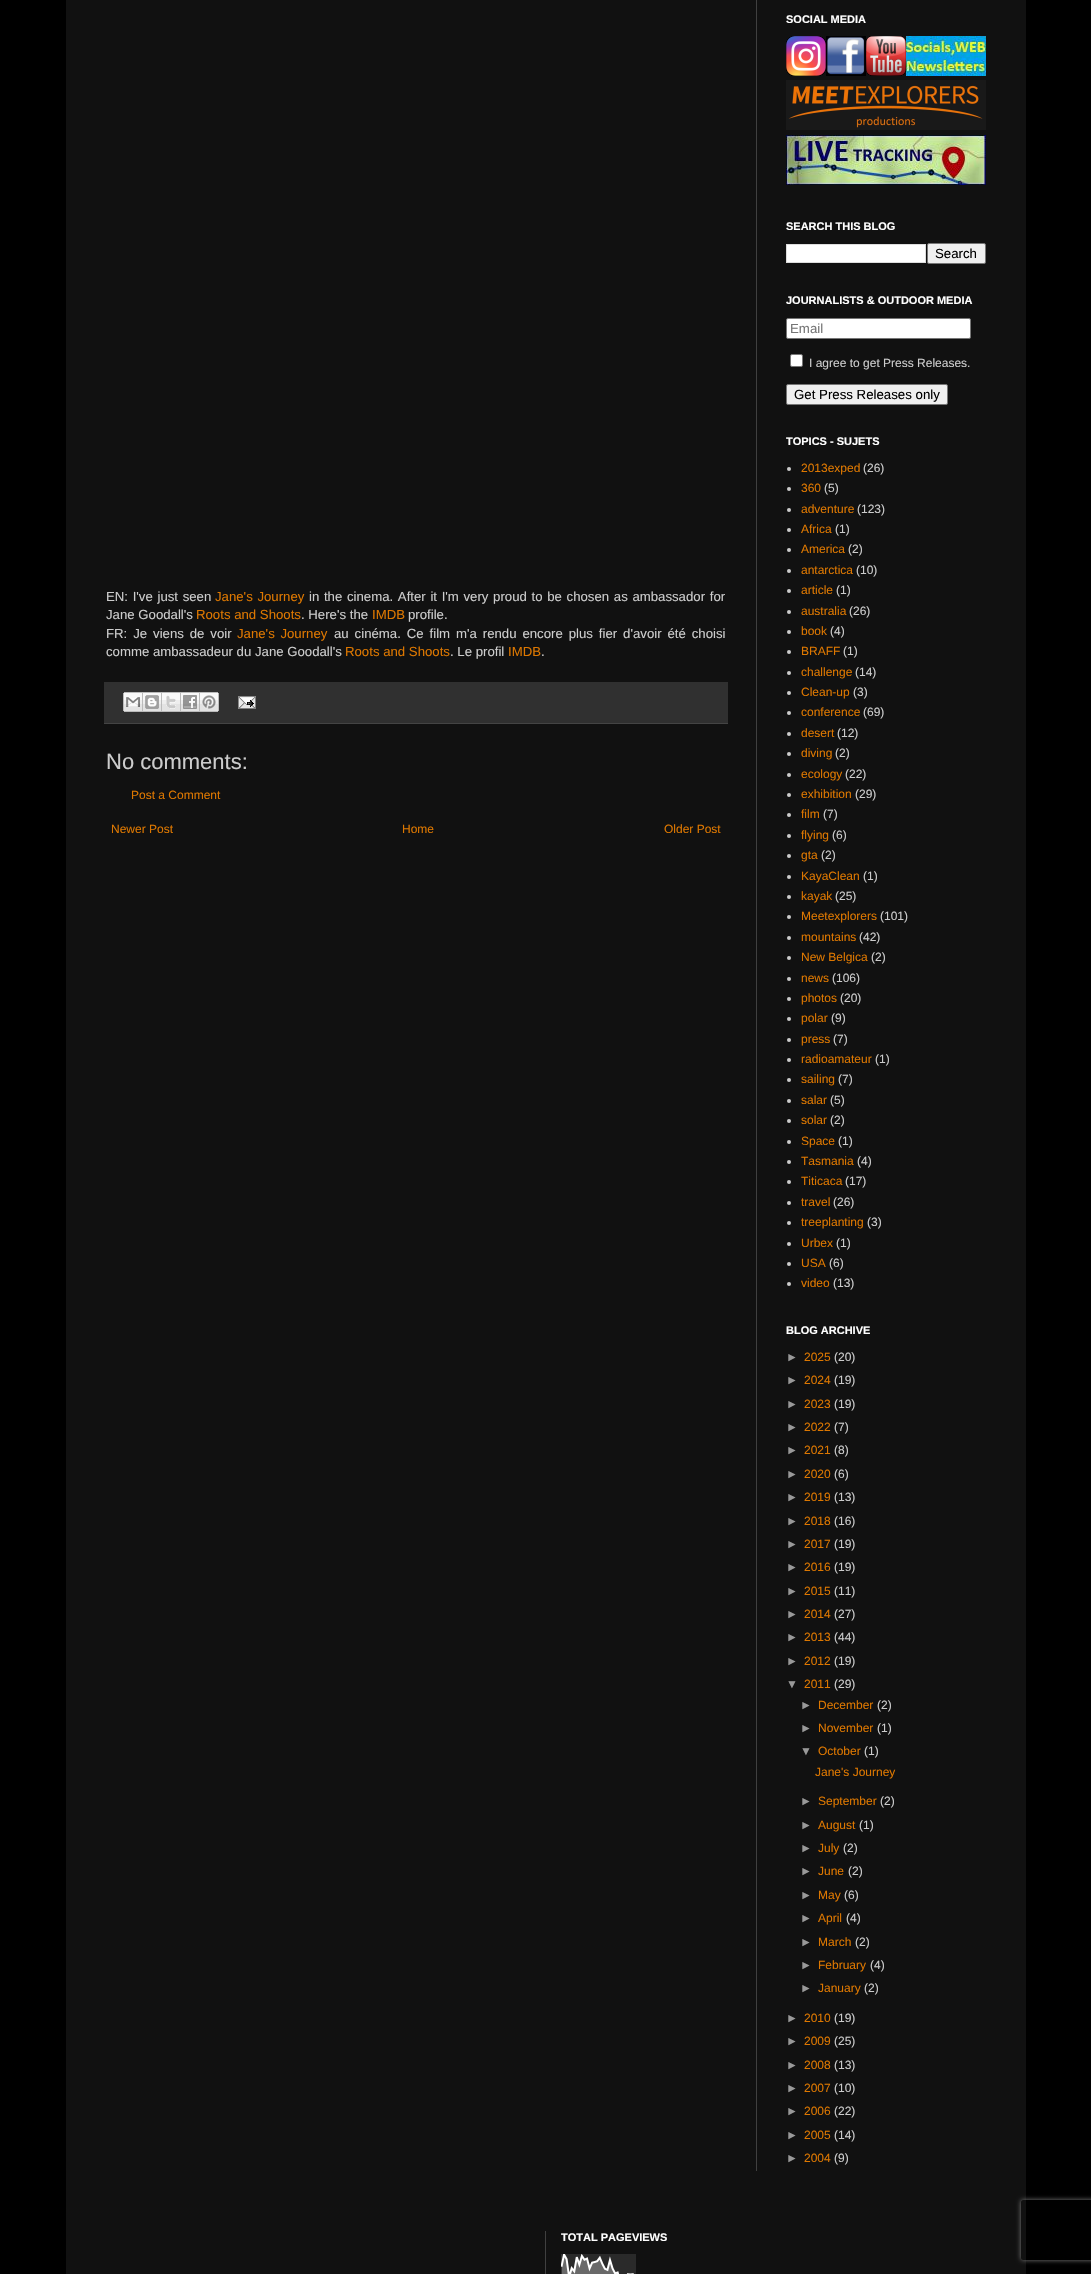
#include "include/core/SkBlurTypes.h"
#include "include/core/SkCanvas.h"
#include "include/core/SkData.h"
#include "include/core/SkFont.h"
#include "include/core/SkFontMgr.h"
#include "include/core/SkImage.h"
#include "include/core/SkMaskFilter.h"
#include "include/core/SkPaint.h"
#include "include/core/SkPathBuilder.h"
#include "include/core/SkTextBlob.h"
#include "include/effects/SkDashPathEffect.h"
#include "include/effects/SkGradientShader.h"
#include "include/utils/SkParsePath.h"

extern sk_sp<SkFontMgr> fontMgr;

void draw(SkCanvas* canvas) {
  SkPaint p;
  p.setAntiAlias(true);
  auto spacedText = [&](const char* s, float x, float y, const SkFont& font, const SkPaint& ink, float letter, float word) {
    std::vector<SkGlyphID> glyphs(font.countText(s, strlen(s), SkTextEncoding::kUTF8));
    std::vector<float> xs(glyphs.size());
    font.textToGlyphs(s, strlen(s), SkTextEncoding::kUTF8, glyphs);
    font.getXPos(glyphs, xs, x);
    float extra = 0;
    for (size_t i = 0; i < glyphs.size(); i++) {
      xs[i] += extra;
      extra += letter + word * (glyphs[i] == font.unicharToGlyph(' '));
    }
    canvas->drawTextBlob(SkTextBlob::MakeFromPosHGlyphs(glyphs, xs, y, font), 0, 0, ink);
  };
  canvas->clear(SK_ColorBLACK);
  p.setColor(SkColorSetRGB(17, 17, 17));
  canvas->drawRect(SkRect::MakeLTRB(66, 0, 1026, 2274), p);
  p.setColor(SkColorSetRGB(64, 64, 64));
  canvas->drawRect(SkRect::MakeLTRB(756, 0, 757, 2171), p);
  p.setColor(SkColorSetRGB(48, 48, 48));
  canvas->drawRect(SkRect::MakeLTRB(104, 682, 728, 723), p);
  p.setColor(SkColorSetRGB(68, 68, 68));
  canvas->drawRect(SkRect::MakeLTRB(104, 723, 728, 724), p);
  canvas->drawImageRect(SkImages::DeferredFromEncodedData(SkData::MakeFromFileName("images/1.png")), SkRect::MakeLTRB(123, 692, 143, 712), SkSamplingOptions());
  canvas->drawImageRect(SkImages::DeferredFromEncodedData(SkData::MakeFromFileName("images/2.png")), SkRect::MakeLTRB(143, 692, 162, 712), SkSamplingOptions());
  canvas->drawImageRect(SkImages::DeferredFromEncodedData(SkData::MakeFromFileName("images/3.png")), SkRect::MakeLTRB(162, 692, 181, 712), SkSamplingOptions());
  canvas->drawImageRect(SkImages::DeferredFromEncodedData(SkData::MakeFromFileName("images/4.png")), SkRect::MakeLTRB(181, 692, 200, 712), SkSamplingOptions());
  canvas->drawImageRect(SkImages::DeferredFromEncodedData(SkData::MakeFromFileName("images/5.png")), SkRect::MakeLTRB(200, 692, 219, 712), SkSamplingOptions());
  canvas->drawImageRect(SkImages::DeferredFromEncodedData(SkData::MakeFromFileName("images/6.png")), SkRect::MakeLTRB(238, 696, 256, 709), SkSamplingOptions());
  canvas->drawImageRect(SkImages::DeferredFromEncodedData(SkData::MakeFromFileName("images/7.png")), SkRect::MakeLTRB(786, 36, 826, 76), SkSamplingOptions());
  canvas->drawImageRect(SkImages::DeferredFromEncodedData(SkData::MakeFromFileName("images/8.png")), SkRect::MakeLTRB(826, 36, 866, 76), SkSamplingOptions());
  canvas->drawImageRect(SkImages::DeferredFromEncodedData(SkData::MakeFromFileName("images/9.png")), SkRect::MakeLTRB(866, 36, 906, 76), SkSamplingOptions());
  canvas->drawImageRect(SkImages::DeferredFromEncodedData(SkData::MakeFromFileName("images/10.png")), SkRect::MakeLTRB(906, 36, 986, 76), SkSamplingOptions());
  canvas->drawImageRect(SkImages::DeferredFromEncodedData(SkData::MakeFromFileName("images/11.png")), SkRect::MakeLTRB(786, 80, 986, 130), SkSamplingOptions());
  canvas->drawImageRect(SkImages::DeferredFromEncodedData(SkData::MakeFromFileName("images/12.png")), SkRect::MakeLTRB(786, 135, 986, 185), SkSamplingOptions());
  p.setColor(SK_ColorWHITE);
  canvas->drawRect(SkRect::MakeLTRB(786.5f, 244.5f, 925.5f, 262.5f), p);
  p.setStyle(SkPaint::kStroke_Style);
  p.setStrokeWidth(1);
  p.setColor(SkColorSetRGB(221, 221, 221));
  canvas->drawRect(SkRect::MakeLTRB(786.5f, 244.5f, 925.5f, 262.5f), p);
  p.setStyle(SkPaint::kFill_Style);
  p.setColor(SkColorSetRGB(239, 239, 239));
  canvas->drawRoundRect(SkRect::MakeLTRB(927.5f, 243.5f, 985.5f, 263.5f), 1.5f, 1.5f, p);
  p.setStyle(SkPaint::kStroke_Style);
  p.setColor(SkColorSetRGB(118, 118, 118));
  canvas->drawRoundRect(SkRect::MakeLTRB(927.5f, 243.5f, 985.5f, 263.5f), 1.5f, 1.5f, p);
  p.setStyle(SkPaint::kFill_Style);
  p.setColor(SK_ColorWHITE);
  canvas->drawRoundRect(SkRect::MakeLTRB(786.5f, 318.5f, 970.5f, 338.5f), 1.5f, 1.5f, p);
  p.setStyle(SkPaint::kStroke_Style);
  p.setColor(SkColorSetRGB(118, 118, 118));
  canvas->drawRoundRect(SkRect::MakeLTRB(786.5f, 318.5f, 970.5f, 338.5f), 1.5f, 1.5f, p);
  p.setStyle(SkPaint::kFill_Style);
  p.setColor(SK_ColorWHITE);
  canvas->drawRoundRect(SkRect::MakeLTRB(790.5f, 354.5f, 802.5f, 366.5f), 1.5f, 1.5f, p);
  p.setStyle(SkPaint::kStroke_Style);
  p.setColor(SkColorSetRGB(118, 118, 118));
  canvas->drawRoundRect(SkRect::MakeLTRB(790.5f, 354.5f, 802.5f, 366.5f), 1.5f, 1.5f, p);
  p.setStyle(SkPaint::kFill_Style);
  p.setColor(SkColorSetRGB(239, 239, 239));
  canvas->drawRoundRect(SkRect::MakeLTRB(786.5f, 384.5f, 947.5f, 404.5f), 1.5f, 1.5f, p);
  p.setStyle(SkPaint::kStroke_Style);
  p.setColor(SkColorSetRGB(118, 118, 118));
  canvas->drawRoundRect(SkRect::MakeLTRB(786.5f, 384.5f, 947.5f, 404.5f), 1.5f, 1.5f, p);
  p.setStyle(SkPaint::kFill_Style);
  p.setColor(SkColorSetRGB(204, 204, 204));
  canvas->drawCircle(789, 469, 2, p);
  canvas->drawCircle(789, 489, 2, p);
  canvas->drawCircle(789, 510, 2, p);
  canvas->drawCircle(789, 530, 2, p);
  canvas->drawCircle(789, 550, 2, p);
  canvas->drawCircle(789, 571, 2, p);
  canvas->drawCircle(789, 591, 2, p);
  canvas->drawCircle(789, 612, 2, p);
  canvas->drawCircle(789, 632, 2, p);
  canvas->drawCircle(789, 652, 2, p);
  canvas->drawCircle(789, 673, 2, p);
  canvas->drawCircle(789, 693, 2, p);
  canvas->drawCircle(789, 713, 2, p);
  canvas->drawCircle(789, 734, 2, p);
  canvas->drawCircle(789, 754, 2, p);
  canvas->drawCircle(789, 775, 2, p);
  canvas->drawCircle(789, 795, 2, p);
  canvas->drawCircle(789, 815, 2, p);
  canvas->drawCircle(789, 836, 2, p);
  canvas->drawCircle(789, 856, 2, p);
  canvas->drawCircle(789, 877, 2, p);
  canvas->drawCircle(789, 897, 2, p);
  canvas->drawCircle(789, 917, 2, p);
  canvas->drawCircle(789, 938, 2, p);
  canvas->drawCircle(789, 958, 2, p);
  canvas->drawCircle(789, 979, 2, p);
  canvas->drawCircle(789, 999, 2, p);
  canvas->drawCircle(789, 1019, 2, p);
  canvas->drawCircle(789, 1040, 2, p);
  canvas->drawCircle(789, 1060, 2, p);
  canvas->drawCircle(789, 1080, 2, p);
  canvas->drawCircle(789, 1101, 2, p);
  canvas->drawCircle(789, 1121, 2, p);
  canvas->drawCircle(789, 1142, 2, p);
  canvas->drawCircle(789, 1162, 2, p);
  canvas->drawCircle(789, 1182, 2, p);
  canvas->drawCircle(789, 1203, 2, p);
  canvas->drawCircle(789, 1223, 2, p);
  canvas->drawCircle(789, 1244, 2, p);
  canvas->drawCircle(789, 1264, 2, p);
  canvas->drawCircle(789, 1284, 2, p);
  p.setColor(SkColorSetRGB(64, 64, 64));
  canvas->drawRect(SkRect::MakeLTRB(545, 2231, 546, 2274), p);
  canvas->drawImageRect(SkImages::DeferredFromEncodedData(SkData::MakeFromFileName("images/13.png")), SkRect::MakeLTRB(561, 2254, 636, 2274), SkSamplingOptions());
  canvas->save();
  canvas->clipPath(SkPathBuilder(SkPathFillType::kEvenOdd).moveTo(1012, 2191).lineTo(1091, 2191).lineTo(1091, 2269).lineTo(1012, 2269).close().moveTo(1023, 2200).lineTo(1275, 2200).cubicTo(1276, 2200, 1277, 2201, 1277, 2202).lineTo(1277, 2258).cubicTo(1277, 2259, 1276, 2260, 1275, 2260).lineTo(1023, 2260).cubicTo(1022, 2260, 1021, 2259, 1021, 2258).lineTo(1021, 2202).cubicTo(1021, 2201, 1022, 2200, 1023, 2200).close().detach(), true);
  p.setColor(SkColorSetRGB(128, 128, 128));
  p.setMaskFilter(SkMaskFilter::MakeBlur(kNormal_SkBlurStyle, 2.5f));
  canvas->drawRoundRect(SkRect::MakeLTRB(1021, 2200, 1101, 2260), 2, 2, p);
  p.setMaskFilter(nullptr);
  canvas->restore();
  SkFont font1(fontMgr->matchFamilyStyle("Liberation Sans", SkFontStyle::Normal()), 13.2f);
  font1.setSubpixel(true);
  p.setColor(SkColorSetRGB(204, 204, 204));
  spacedText("EN: I've just seen", 106, 601, font1, p, 0, 1);
  p.setColor(SkColorSetRGB(221, 119, 0));
  spacedText("Jane's Journey", 215, 601, font1, p, 0, 1);
  p.setColor(SkColorSetRGB(204, 204, 204));
  spacedText("in the cinema. After it I'm very proud to be chosen as ambassador for", 309, 601, font1, p, 0, 1);
  canvas->drawString("Jane Goodall's", 106, 619, font1, p);
  p.setColor(SkColorSetRGB(221, 119, 0));
  canvas->drawString("Roots and Shoots", 196, 619, font1, p);
  p.setColor(SkColorSetRGB(204, 204, 204));
  canvas->drawString(". Here's the", 301, 619, font1, p);
  p.setColor(SkColorSetRGB(221, 119, 0));
  canvas->drawString("IMDB", 372, 619, font1, p);
  p.setColor(SkColorSetRGB(204, 204, 204));
  canvas->drawString("profile.", 408, 619, font1, p);
  spacedText("FR: Je viens de voir", 106, 638, font1, p, 0, 2.25f);
  p.setColor(SkColorSetRGB(221, 119, 0));
  spacedText("Jane's Journey", 237, 638, font1, p, 0, 2);
  p.setColor(SkColorSetRGB(204, 204, 204));
  spacedText("au cinéma. Ce film m'a rendu encore plus fier d'avoir été choisi", 334, 638, font1, p, 0, 2.25f);
  canvas->drawString("comme ambassadeur du Jane Goodall's", 106, 656, font1, p);
  p.setColor(SkColorSetRGB(221, 119, 0));
  canvas->drawString("Roots and Shoots", 345, 656, font1, p);
  p.setColor(SkColorSetRGB(204, 204, 204));
  canvas->drawString(". Le profil", 450, 656, font1, p);
  p.setColor(SkColorSetRGB(221, 119, 0));
  canvas->drawString("IMDB", 508, 656, font1, p);
  p.setColor(SkColorSetRGB(204, 204, 204));
  canvas->drawString(".", 541, 656, font1, p);
  SkFont font2(fontMgr->matchFamilyStyle("Liberation Sans", SkFontStyle::Normal()), 22);
  font2.setSubpixel(true);
  canvas->drawString("No comments:", 106, 769, font2, p);
  SkFont font3(fontMgr->matchFamilyStyle("Liberation Sans", SkFontStyle::Normal()), 12);
  font3.setSubpixel(true);
  p.setColor(SkColorSetRGB(221, 119, 0));
  canvas->drawString("Post a Comment", 131, 799, font3, p);
  canvas->drawString("Newer Post", 111, 833, font3, p);
  canvas->drawString("Home", 402, 833, font3, p);
  canvas->drawString("Older Post", 664, 833, font3, p);
  SkFont font4(fontMgr->matchFamilyStyle("Liberation Sans", SkFontStyle::Bold()), 11);
  font4.setSubpixel(true);
  p.setColor(SK_ColorWHITE);
  canvas->drawString("SOCIAL MEDIA", 786, 23, font4, p);
  canvas->drawString("SEARCH THIS BLOG", 786, 230, font4, p);
  SkFont font5(fontMgr->matchFamilyStyle("Liberation Sans", SkFontStyle::Normal()), 13.25f);
  font5.setSubpixel(true);
  p.setColor(SK_ColorBLACK);
  canvas->drawString("Search", 935, 258, font5, p);
  p.setColor(SK_ColorWHITE);
  canvas->drawString("JOURNALISTS & OUTDOOR MEDIA", 786, 304, font4, p);
  p.setColor(SkColorSetRGB(117, 117, 117));
  canvas->drawString("Email", 790, 333, font5, p);
  p.setColor(SkColorSetRGB(204, 204, 204));
  canvas->drawString("I agree to get Press Releases.", 809, 367, font3, p);
  p.setColor(SK_ColorBLACK);
  canvas->drawString("Get Press Releases only", 794, 399, font5, p);
  p.setColor(SK_ColorWHITE);
  canvas->drawString("TOPICS - SUJETS", 786, 445, font4, p);
  p.setColor(SkColorSetRGB(221, 119, 0));
  canvas->drawString("2013exped", 801, 472, font3, p);
  p.setColor(SkColorSetRGB(204, 204, 204));
  canvas->drawString("(26)", 863, 472, font3, p);
  p.setColor(SkColorSetRGB(221, 119, 0));
  canvas->drawString("360", 801, 492, font3, p);
  p.setColor(SkColorSetRGB(204, 204, 204));
  canvas->drawString("(5)", 824, 492, font3, p);
  p.setColor(SkColorSetRGB(221, 119, 0));
  canvas->drawString("adventure", 801, 513, font3, p);
  p.setColor(SkColorSetRGB(204, 204, 204));
  canvas->drawString("(123)", 857, 513, font3, p);
  p.setColor(SkColorSetRGB(221, 119, 0));
  canvas->drawString("Africa", 801, 533, font3, p);
  p.setColor(SkColorSetRGB(204, 204, 204));
  canvas->drawString("(1)", 835, 533, font3, p);
  p.setColor(SkColorSetRGB(221, 119, 0));
  canvas->drawString("America", 801, 553, font3, p);
  p.setColor(SkColorSetRGB(204, 204, 204));
  canvas->drawString("(2)", 848, 553, font3, p);
  p.setColor(SkColorSetRGB(221, 119, 0));
  canvas->drawString("antarctica", 801, 574, font3, p);
  p.setColor(SkColorSetRGB(204, 204, 204));
  canvas->drawString("(10)", 856, 574, font3, p);
  p.setColor(SkColorSetRGB(221, 119, 0));
  canvas->drawString("article", 801, 594, font3, p);
  p.setColor(SkColorSetRGB(204, 204, 204));
  canvas->drawString("(1)", 836, 594, font3, p);
  p.setColor(SkColorSetRGB(221, 119, 0));
  canvas->drawString("australia", 801, 615, font3, p);
  p.setColor(SkColorSetRGB(204, 204, 204));
  canvas->drawString("(26)", 849, 615, font3, p);
  p.setColor(SkColorSetRGB(221, 119, 0));
  canvas->drawString("book", 801, 635, font3, p);
  p.setColor(SkColorSetRGB(204, 204, 204));
  canvas->drawString("(4)", 830, 635, font3, p);
  p.setColor(SkColorSetRGB(221, 119, 0));
  canvas->drawString("BRAFF", 801, 655, font3, p);
  p.setColor(SkColorSetRGB(204, 204, 204));
  canvas->drawString("(1)", 843, 655, font3, p);
  p.setColor(SkColorSetRGB(221, 119, 0));
  canvas->drawString("challenge", 801, 676, font3, p);
  p.setColor(SkColorSetRGB(204, 204, 204));
  canvas->drawString("(14)", 855, 676, font3, p);
  p.setColor(SkColorSetRGB(221, 119, 0));
  canvas->drawString("Clean-up", 801, 696, font3, p);
  p.setColor(SkColorSetRGB(204, 204, 204));
  canvas->drawString("(3)", 853, 696, font3, p);
  p.setColor(SkColorSetRGB(221, 119, 0));
  canvas->drawString("conference", 801, 716, font3, p);
  p.setColor(SkColorSetRGB(204, 204, 204));
  canvas->drawString("(69)", 863, 716, font3, p);
  p.setColor(SkColorSetRGB(221, 119, 0));
  canvas->drawString("desert", 801, 737, font3, p);
  p.setColor(SkColorSetRGB(204, 204, 204));
  canvas->drawString("(12)", 837, 737, font3, p);
  p.setColor(SkColorSetRGB(221, 119, 0));
  canvas->drawString("diving", 801, 757, font3, p);
  p.setColor(SkColorSetRGB(204, 204, 204));
  canvas->drawString("(2)", 835, 757, font3, p);
  p.setColor(SkColorSetRGB(221, 119, 0));
  canvas->drawString("ecology", 801, 778, font3, p);
  p.setColor(SkColorSetRGB(204, 204, 204));
  canvas->drawString("(22)", 845, 778, font3, p);
  p.setColor(SkColorSetRGB(221, 119, 0));
  canvas->drawString("exhibition", 801, 798, font3, p);
  p.setColor(SkColorSetRGB(204, 204, 204));
  canvas->drawString("(29)", 855, 798, font3, p);
  p.setColor(SkColorSetRGB(221, 119, 0));
  canvas->drawString("film", 801, 818, font3, p);
  p.setColor(SkColorSetRGB(204, 204, 204));
  canvas->drawString("(7)", 823, 818, font3, p);
  p.setColor(SkColorSetRGB(221, 119, 0));
  canvas->drawString("flying", 801, 839, font3, p);
  p.setColor(SkColorSetRGB(204, 204, 204));
  canvas->drawString("(6)", 832, 839, font3, p);
  p.setColor(SkColorSetRGB(221, 119, 0));
  canvas->drawString("gta", 801, 859, font3, p);
  p.setColor(SkColorSetRGB(204, 204, 204));
  canvas->drawString("(2)", 821, 859, font3, p);
  p.setColor(SkColorSetRGB(221, 119, 0));
  canvas->drawString("KayaClean", 801, 880, font3, p);
  p.setColor(SkColorSetRGB(204, 204, 204));
  canvas->drawString("(1)", 863, 880, font3, p);
  p.setColor(SkColorSetRGB(221, 119, 0));
  canvas->drawString("kayak", 801, 900, font3, p);
  p.setColor(SkColorSetRGB(204, 204, 204));
  canvas->drawString("(25)", 835, 900, font3, p);
  p.setColor(SkColorSetRGB(221, 119, 0));
  canvas->drawString("Meetexplorers", 801, 920, font3, p);
  p.setColor(SkColorSetRGB(204, 204, 204));
  canvas->drawString("(101)", 880, 920, font3, p);
  p.setColor(SkColorSetRGB(221, 119, 0));
  canvas->drawString("mountains", 801, 941, font3, p);
  p.setColor(SkColorSetRGB(204, 204, 204));
  canvas->drawString("(42)", 859, 941, font3, p);
  p.setColor(SkColorSetRGB(221, 119, 0));
  canvas->drawString("New Belgica", 801, 961, font3, p);
  p.setColor(SkColorSetRGB(204, 204, 204));
  canvas->drawString("(2)", 871, 961, font3, p);
  p.setColor(SkColorSetRGB(221, 119, 0));
  canvas->drawString("news", 801, 982, font3, p);
  p.setColor(SkColorSetRGB(204, 204, 204));
  canvas->drawString("(106)", 832, 982, font3, p);
  p.setColor(SkColorSetRGB(221, 119, 0));
  canvas->drawString("photos", 801, 1002, font3, p);
  p.setColor(SkColorSetRGB(204, 204, 204));
  canvas->drawString("(20)", 840, 1002, font3, p);
  p.setColor(SkColorSetRGB(221, 119, 0));
  canvas->drawString("polar", 801, 1022, font3, p);
  p.setColor(SkColorSetRGB(204, 204, 204));
  canvas->drawString("(9)", 831, 1022, font3, p);
  p.setColor(SkColorSetRGB(221, 119, 0));
  canvas->drawString("press", 801, 1043, font3, p);
  p.setColor(SkColorSetRGB(204, 204, 204));
  canvas->drawString("(7)", 833, 1043, font3, p);
  p.setColor(SkColorSetRGB(221, 119, 0));
  canvas->drawString("radioamateur", 801, 1063, font3, p);
  p.setColor(SkColorSetRGB(204, 204, 204));
  canvas->drawString("(1)", 875, 1063, font3, p);
  p.setColor(SkColorSetRGB(221, 119, 0));
  canvas->drawString("sailing", 801, 1083, font3, p);
  p.setColor(SkColorSetRGB(204, 204, 204));
  canvas->drawString("(7)", 838, 1083, font3, p);
  p.setColor(SkColorSetRGB(221, 119, 0));
  canvas->drawString("salar", 801, 1104, font3, p);
  p.setColor(SkColorSetRGB(204, 204, 204));
  canvas->drawString("(5)", 830, 1104, font3, p);
  p.setColor(SkColorSetRGB(221, 119, 0));
  canvas->drawString("solar", 801, 1124, font3, p);
  p.setColor(SkColorSetRGB(204, 204, 204));
  canvas->drawString("(2)", 830, 1124, font3, p);
  p.setColor(SkColorSetRGB(221, 119, 0));
  canvas->drawString("Space", 801, 1145, font3, p);
  p.setColor(SkColorSetRGB(204, 204, 204));
  canvas->drawString("(1)", 838, 1145, font3, p);
  p.setColor(SkColorSetRGB(221, 119, 0));
  canvas->drawString("Tasmania", 801, 1165, font3, p);
  p.setColor(SkColorSetRGB(204, 204, 204));
  canvas->drawString("(4)", 857, 1165, font3, p);
  p.setColor(SkColorSetRGB(221, 119, 0));
  canvas->drawString("Titicaca", 801, 1185, font3, p);
  p.setColor(SkColorSetRGB(204, 204, 204));
  canvas->drawString("(17)", 845, 1185, font3, p);
  p.setColor(SkColorSetRGB(221, 119, 0));
  canvas->drawString("travel", 801, 1206, font3, p);
  p.setColor(SkColorSetRGB(204, 204, 204));
  canvas->drawString("(26)", 833, 1206, font3, p);
  p.setColor(SkColorSetRGB(221, 119, 0));
  canvas->drawString("treeplanting", 801, 1226, font3, p);
  p.setColor(SkColorSetRGB(204, 204, 204));
  canvas->drawString("(3)", 867, 1226, font3, p);
  p.setColor(SkColorSetRGB(221, 119, 0));
  canvas->drawString("Urbex", 801, 1247, font3, p);
  p.setColor(SkColorSetRGB(204, 204, 204));
  canvas->drawString("(1)", 836, 1247, font3, p);
  p.setColor(SkColorSetRGB(221, 119, 0));
  canvas->drawString("USA", 801, 1267, font3, p);
  p.setColor(SkColorSetRGB(204, 204, 204));
  canvas->drawString("(6)", 829, 1267, font3, p);
  p.setColor(SkColorSetRGB(221, 119, 0));
  canvas->drawString("video", 801, 1287, font3, p);
  p.setColor(SkColorSetRGB(204, 204, 204));
  canvas->drawString("(13)", 833, 1287, font3, p);
  p.setColor(SK_ColorWHITE);
  canvas->drawString("BLOG ARCHIVE", 786, 1334, font4, p);
  p.setColor(SkColorSetRGB(153, 153, 153));
  canvas->drawString("►", 786, 1361, font3, p);
  p.setColor(SkColorSetRGB(221, 119, 0));
  canvas->drawString("2025", 804, 1361, font3, p);
  p.setColor(SkColorSetRGB(204, 204, 204));
  canvas->drawString("(20)", 834, 1361, font3, p);
  p.setColor(SkColorSetRGB(153, 153, 153));
  canvas->drawString("►", 786, 1384, font3, p);
  p.setColor(SkColorSetRGB(221, 119, 0));
  canvas->drawString("2024", 804, 1384, font3, p);
  p.setColor(SkColorSetRGB(204, 204, 204));
  canvas->drawString("(19)", 834, 1384, font3, p);
  p.setColor(SkColorSetRGB(153, 153, 153));
  canvas->drawString("►", 786, 1408, font3, p);
  p.setColor(SkColorSetRGB(221, 119, 0));
  canvas->drawString("2023", 804, 1408, font3, p);
  p.setColor(SkColorSetRGB(204, 204, 204));
  canvas->drawString("(19)", 834, 1408, font3, p);
  p.setColor(SkColorSetRGB(153, 153, 153));
  canvas->drawString("►", 786, 1431, font3, p);
  p.setColor(SkColorSetRGB(221, 119, 0));
  canvas->drawString("2022", 804, 1431, font3, p);
  p.setColor(SkColorSetRGB(204, 204, 204));
  canvas->drawString("(7)", 834, 1431, font3, p);
  p.setColor(SkColorSetRGB(153, 153, 153));
  canvas->drawString("►", 786, 1454, font3, p);
  p.setColor(SkColorSetRGB(221, 119, 0));
  canvas->drawString("2021", 804, 1454, font3, p);
  p.setColor(SkColorSetRGB(204, 204, 204));
  canvas->drawString("(8)", 834, 1454, font3, p);
  p.setColor(SkColorSetRGB(153, 153, 153));
  canvas->drawString("►", 786, 1478, font3, p);
  p.setColor(SkColorSetRGB(221, 119, 0));
  canvas->drawString("2020", 804, 1478, font3, p);
  p.setColor(SkColorSetRGB(204, 204, 204));
  canvas->drawString("(6)", 834, 1478, font3, p);
  p.setColor(SkColorSetRGB(153, 153, 153));
  canvas->drawString("►", 786, 1501, font3, p);
  p.setColor(SkColorSetRGB(221, 119, 0));
  canvas->drawString("2019", 804, 1501, font3, p);
  p.setColor(SkColorSetRGB(204, 204, 204));
  canvas->drawString("(13)", 834, 1501, font3, p);
  p.setColor(SkColorSetRGB(153, 153, 153));
  canvas->drawString("►", 786, 1525, font3, p);
  p.setColor(SkColorSetRGB(221, 119, 0));
  canvas->drawString("2018", 804, 1525, font3, p);
  p.setColor(SkColorSetRGB(204, 204, 204));
  canvas->drawString("(16)", 834, 1525, font3, p);
  p.setColor(SkColorSetRGB(153, 153, 153));
  canvas->drawString("►", 786, 1548, font3, p);
  p.setColor(SkColorSetRGB(221, 119, 0));
  canvas->drawString("2017", 804, 1548, font3, p);
  p.setColor(SkColorSetRGB(204, 204, 204));
  canvas->drawString("(19)", 834, 1548, font3, p);
  p.setColor(SkColorSetRGB(153, 153, 153));
  canvas->drawString("►", 786, 1571, font3, p);
  p.setColor(SkColorSetRGB(221, 119, 0));
  canvas->drawString("2016", 804, 1571, font3, p);
  p.setColor(SkColorSetRGB(204, 204, 204));
  canvas->drawString("(19)", 834, 1571, font3, p);
  p.setColor(SkColorSetRGB(153, 153, 153));
  canvas->drawString("►", 786, 1595, font3, p);
  p.setColor(SkColorSetRGB(221, 119, 0));
  canvas->drawString("2015", 804, 1595, font3, p);
  p.setColor(SkColorSetRGB(204, 204, 204));
  canvas->drawString("(11)", 834, 1595, font3, p);
  p.setColor(SkColorSetRGB(153, 153, 153));
  canvas->drawString("►", 786, 1618, font3, p);
  p.setColor(SkColorSetRGB(221, 119, 0));
  canvas->drawString("2014", 804, 1618, font3, p);
  p.setColor(SkColorSetRGB(204, 204, 204));
  canvas->drawString("(27)", 834, 1618, font3, p);
  p.setColor(SkColorSetRGB(153, 153, 153));
  canvas->drawString("►", 786, 1641, font3, p);
  p.setColor(SkColorSetRGB(221, 119, 0));
  canvas->drawString("2013", 804, 1641, font3, p);
  p.setColor(SkColorSetRGB(204, 204, 204));
  canvas->drawString("(44)", 834, 1641, font3, p);
  p.setColor(SkColorSetRGB(153, 153, 153));
  canvas->drawString("►", 786, 1665, font3, p);
  p.setColor(SkColorSetRGB(221, 119, 0));
  canvas->drawString("2012", 804, 1665, font3, p);
  p.setColor(SkColorSetRGB(204, 204, 204));
  canvas->drawString("(19)", 834, 1665, font3, p);
  p.setColor(SkColorSetRGB(153, 153, 153));
  canvas->drawString("▼", 786, 1688, font3, p);
  p.setColor(SkColorSetRGB(221, 119, 0));
  canvas->drawString("2011", 804, 1688, font3, p);
  p.setColor(SkColorSetRGB(204, 204, 204));
  canvas->drawString("(29)", 834, 1688, font3, p);
  p.setColor(SkColorSetRGB(153, 153, 153));
  canvas->drawString("►", 800, 1709, font3, p);
  p.setColor(SkColorSetRGB(221, 119, 0));
  canvas->drawString("December", 818, 1709, font3, p);
  p.setColor(SkColorSetRGB(204, 204, 204));
  canvas->drawString("(2)", 877, 1709, font3, p);
  p.setColor(SkColorSetRGB(153, 153, 153));
  canvas->drawString("►", 800, 1732, font3, p);
  p.setColor(SkColorSetRGB(221, 119, 0));
  canvas->drawString("November", 818, 1732, font3, p);
  p.setColor(SkColorSetRGB(204, 204, 204));
  canvas->drawString("(1)", 877, 1732, font3, p);
  p.setColor(SkColorSetRGB(153, 153, 153));
  canvas->drawString("▼", 800, 1755, font3, p);
  p.setColor(SkColorSetRGB(221, 119, 0));
  canvas->drawString("October", 818, 1755, font3, p);
  p.setColor(SkColorSetRGB(204, 204, 204));
  canvas->drawString("(1)", 864, 1755, font3, p);
  p.setColor(SkColorSetRGB(221, 119, 0));
  canvas->drawString("Jane's Journey", 815, 1776, font3, p);
  p.setColor(SkColorSetRGB(153, 153, 153));
  canvas->drawString("►", 800, 1805, font3, p);
  p.setColor(SkColorSetRGB(221, 119, 0));
  canvas->drawString("September", 818, 1805, font3, p);
  p.setColor(SkColorSetRGB(204, 204, 204));
  canvas->drawString("(2)", 880, 1805, font3, p);
  p.setColor(SkColorSetRGB(153, 153, 153));
  canvas->drawString("►", 800, 1829, font3, p);
  p.setColor(SkColorSetRGB(221, 119, 0));
  canvas->drawString("August", 818, 1829, font3, p);
  p.setColor(SkColorSetRGB(204, 204, 204));
  canvas->drawString("(1)", 859, 1829, font3, p);
  p.setColor(SkColorSetRGB(153, 153, 153));
  canvas->drawString("►", 800, 1852, font3, p);
  p.setColor(SkColorSetRGB(221, 119, 0));
  canvas->drawString("July", 818, 1852, font3, p);
  p.setColor(SkColorSetRGB(204, 204, 204));
  canvas->drawString("(2)", 843, 1852, font3, p);
  p.setColor(SkColorSetRGB(153, 153, 153));
  canvas->drawString("►", 800, 1875, font3, p);
  p.setColor(SkColorSetRGB(221, 119, 0));
  canvas->drawString("June", 818, 1875, font3, p);
  p.setColor(SkColorSetRGB(204, 204, 204));
  canvas->drawString("(2)", 848, 1875, font3, p);
  p.setColor(SkColorSetRGB(153, 153, 153));
  canvas->drawString("►", 800, 1899, font3, p);
  p.setColor(SkColorSetRGB(221, 119, 0));
  canvas->drawString("May", 818, 1899, font3, p);
  p.setColor(SkColorSetRGB(204, 204, 204));
  canvas->drawString("(6)", 844, 1899, font3, p);
  p.setColor(SkColorSetRGB(153, 153, 153));
  canvas->drawString("►", 800, 1922, font3, p);
  p.setColor(SkColorSetRGB(221, 119, 0));
  canvas->drawString("April", 818, 1922, font3, p);
  p.setColor(SkColorSetRGB(204, 204, 204));
  canvas->drawString("(4)", 846, 1922, font3, p);
  p.setColor(SkColorSetRGB(153, 153, 153));
  canvas->drawString("►", 800, 1946, font3, p);
  p.setColor(SkColorSetRGB(221, 119, 0));
  canvas->drawString("March", 818, 1946, font3, p);
  p.setColor(SkColorSetRGB(204, 204, 204));
  canvas->drawString("(2)", 855, 1946, font3, p);
  p.setColor(SkColorSetRGB(153, 153, 153));
  canvas->drawString("►", 800, 1969, font3, p);
  p.setColor(SkColorSetRGB(221, 119, 0));
  canvas->drawString("February", 818, 1969, font3, p);
  p.setColor(SkColorSetRGB(204, 204, 204));
  canvas->drawString("(4)", 870, 1969, font3, p);
  p.setColor(SkColorSetRGB(153, 153, 153));
  canvas->drawString("►", 800, 1992, font3, p);
  p.setColor(SkColorSetRGB(221, 119, 0));
  canvas->drawString("January", 818, 1992, font3, p);
  p.setColor(SkColorSetRGB(204, 204, 204));
  canvas->drawString("(2)", 864, 1992, font3, p);
  p.setColor(SkColorSetRGB(153, 153, 153));
  canvas->drawString("►", 786, 2022, font3, p);
  p.setColor(SkColorSetRGB(221, 119, 0));
  canvas->drawString("2010", 804, 2022, font3, p);
  p.setColor(SkColorSetRGB(204, 204, 204));
  canvas->drawString("(19)", 834, 2022, font3, p);
  p.setColor(SkColorSetRGB(153, 153, 153));
  canvas->drawString("►", 786, 2045, font3, p);
  p.setColor(SkColorSetRGB(221, 119, 0));
  canvas->drawString("2009", 804, 2045, font3, p);
  p.setColor(SkColorSetRGB(204, 204, 204));
  canvas->drawString("(25)", 834, 2045, font3, p);
  p.setColor(SkColorSetRGB(153, 153, 153));
  canvas->drawString("►", 786, 2069, font3, p);
  p.setColor(SkColorSetRGB(221, 119, 0));
  canvas->drawString("2008", 804, 2069, font3, p);
  p.setColor(SkColorSetRGB(204, 204, 204));
  canvas->drawString("(13)", 834, 2069, font3, p);
  p.setColor(SkColorSetRGB(153, 153, 153));
  canvas->drawString("►", 786, 2092, font3, p);
  p.setColor(SkColorSetRGB(221, 119, 0));
  canvas->drawString("2007", 804, 2092, font3, p);
  p.setColor(SkColorSetRGB(204, 204, 204));
  canvas->drawString("(10)", 834, 2092, font3, p);
  p.setColor(SkColorSetRGB(153, 153, 153));
  canvas->drawString("►", 786, 2115, font3, p);
  p.setColor(SkColorSetRGB(221, 119, 0));
  canvas->drawString("2006", 804, 2115, font3, p);
  p.setColor(SkColorSetRGB(204, 204, 204));
  canvas->drawString("(22)", 834, 2115, font3, p);
  p.setColor(SkColorSetRGB(153, 153, 153));
  canvas->drawString("►", 786, 2139, font3, p);
  p.setColor(SkColorSetRGB(221, 119, 0));
  canvas->drawString("2005", 804, 2139, font3, p);
  p.setColor(SkColorSetRGB(204, 204, 204));
  canvas->drawString("(14)", 834, 2139, font3, p);
  p.setColor(SkColorSetRGB(153, 153, 153));
  canvas->drawString("►", 786, 2162, font3, p);
  p.setColor(SkColorSetRGB(221, 119, 0));
  canvas->drawString("2004", 804, 2162, font3, p);
  p.setColor(SkColorSetRGB(204, 204, 204));
  canvas->drawString("(9)", 834, 2162, font3, p);
  p.setColor(SK_ColorWHITE);
  canvas->drawString("TOTAL PAGEVIEWS", 561, 2241, font4, p);
}
